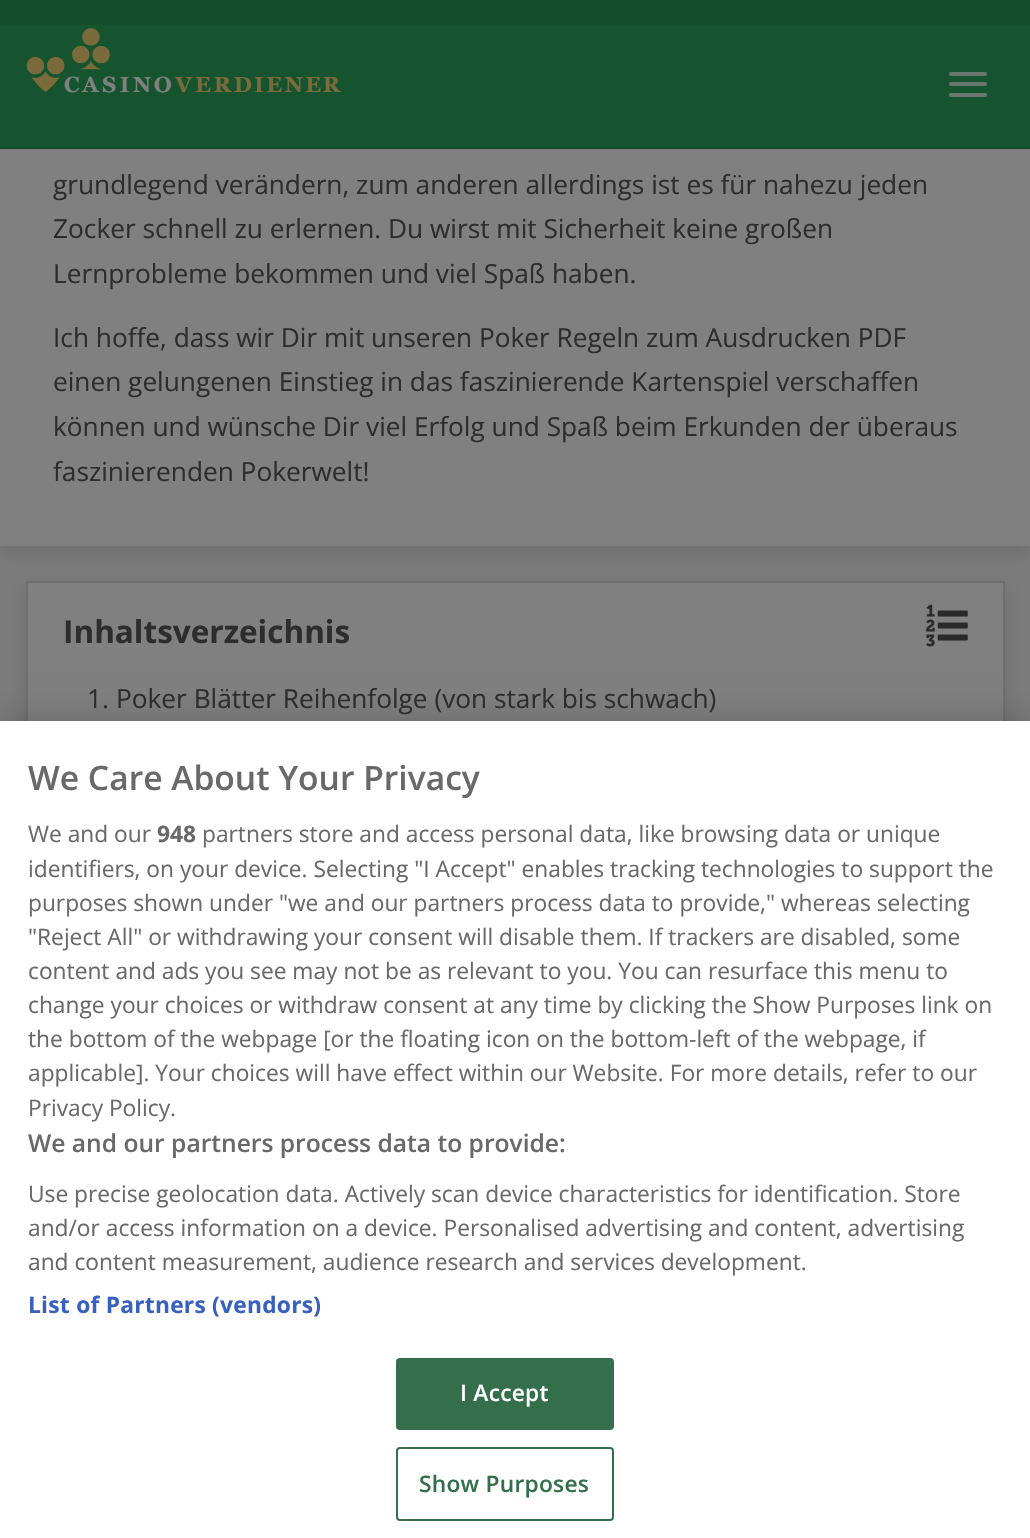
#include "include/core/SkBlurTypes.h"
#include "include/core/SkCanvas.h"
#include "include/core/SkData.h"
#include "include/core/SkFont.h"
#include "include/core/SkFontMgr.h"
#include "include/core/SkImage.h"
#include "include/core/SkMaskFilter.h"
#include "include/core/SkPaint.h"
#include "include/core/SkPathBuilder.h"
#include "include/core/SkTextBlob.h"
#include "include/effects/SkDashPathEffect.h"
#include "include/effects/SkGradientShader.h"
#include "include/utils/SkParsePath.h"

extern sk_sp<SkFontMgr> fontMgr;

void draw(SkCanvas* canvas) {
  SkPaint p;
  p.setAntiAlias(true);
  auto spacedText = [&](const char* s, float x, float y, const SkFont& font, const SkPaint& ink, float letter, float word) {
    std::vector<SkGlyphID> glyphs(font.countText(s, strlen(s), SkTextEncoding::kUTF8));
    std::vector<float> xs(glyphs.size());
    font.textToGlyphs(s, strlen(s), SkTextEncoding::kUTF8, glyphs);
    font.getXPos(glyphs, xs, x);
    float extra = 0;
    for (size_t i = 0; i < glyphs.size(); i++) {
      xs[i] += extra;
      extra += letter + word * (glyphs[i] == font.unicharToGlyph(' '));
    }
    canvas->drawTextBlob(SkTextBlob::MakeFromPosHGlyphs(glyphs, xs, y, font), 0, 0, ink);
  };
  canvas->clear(SkColorSetRGB(123, 123, 123));
  p.setColor(SkColorSetARGB(26, 0, 0, 0));
  p.setMaskFilter(SkMaskFilter::MakeBlur(kNormal_SkBlurStyle, 9));
  canvas->drawRect(SkRect::MakeLTRB(0, -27, 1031, 553), p);
  p.setMaskFilter(nullptr);
  p.setColor(SkColorSetRGB(21, 84, 46));
  canvas->drawRect(SkRect::MakeLTRB(0, 25, 1030, 147), p);
  p.setColor(SkColorSetRGB(20, 79, 43));
  canvas->drawRect(SkRect::MakeLTRB(0, 0, 1030, 25), p);
  p.setColor(SkColorSetRGB(19, 75, 41));
  canvas->drawRect(SkRect::MakeLTRB(0, 147, 1030, 149), p);
  canvas->drawImageRect(SkImages::DeferredFromEncodedData(SkData::MakeFromFileName("images/1.png")), SkRect::MakeLTRB(26, 28, 342, 93), SkSamplingOptions());
  p.setColor(SkColorSetRGB(106, 119, 111));
  canvas->drawRoundRect(SkRect::MakeLTRB(949, 72, 987, 76), 2, 2, p);
  canvas->drawRoundRect(SkRect::MakeLTRB(949, 82, 987, 86), 2, 2, p);
  canvas->drawRoundRect(SkRect::MakeLTRB(949, 93, 987, 97), 2, 2, p);
  p.setColor(SkColorSetRGB(128, 128, 128));
  canvas->drawRect(SkRect::MakeLTRB(0, 149, 1030, 546), p);
  p.setColor(SkColorSetARGB(26, 0, 0, 0));
  p.setMaskFilter(SkMaskFilter::MakeBlur(kNormal_SkBlurStyle, 9));
  canvas->drawRect(SkRect::MakeLTRB(26, 588, 1005, 882), p);
  p.setMaskFilter(nullptr);
  p.setColor(SkColorSetRGB(128, 128, 128));
  canvas->drawRect(SkRect::MakeLTRB(28, 583, 1003, 721), p);
  p.setStyle(SkPaint::kStroke_Style);
  p.setStrokeWidth(2);
  p.setColor(SkColorSetRGB(111, 111, 111));
  canvas->drawRect(SkRect::MakeLTRB(27, 582, 1004, 874), p);
  canvas->drawImageRect(SkImages::DeferredFromEncodedData(SkData::MakeFromFileName("images/2.png")), SkRect::MakeLTRB(926, 604, 968, 647), SkSamplingOptions());
  p.setStyle(SkPaint::kFill_Style);
  p.setColor(SkColorSetARGB(51, 0, 0, 0));
  p.setMaskFilter(SkMaskFilter::MakeBlur(kNormal_SkBlurStyle, 16));
  canvas->drawRect(SkRect::MakeLTRB(0, 721, 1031, 1538), p);
  p.setMaskFilter(nullptr);
  p.setColor(SK_ColorWHITE);
  canvas->drawRect(SkRect::MakeLTRB(0, 721, 1030, 1538), p);
  p.setColor(SkColorSetRGB(52, 110, 74));
  canvas->drawRoundRect(SkRect::MakeLTRB(397, 1359, 613, 1429), 3, 3, p);
  p.setStyle(SkPaint::kStroke_Style);
  canvas->drawRoundRect(SkRect::MakeLTRB(397, 1359, 613, 1429), 3, 3, p);
  canvas->drawRoundRect(SkRect::MakeLTRB(397, 1448, 613, 1520), 3, 3, p);
  SkFont font1(fontMgr->matchFamilyStyle("Open Sans", SkFontStyle::Normal()), 26.25f);
  font1.setSubpixel(true);
  p.setStyle(SkPaint::kFill_Style);
  p.setColor(SkColorSetRGB(45, 45, 45));
  canvas->drawString("grundlegend verändern, zum anderen allerdings ist es für nahezu jeden", 53, 194, font1, p);
  canvas->drawString("Zocker schnell zu erlernen. Du wirst mit Sicherheit keine großen", 53, 238, font1, p);
  canvas->drawString("Lernprobleme bekommen und viel Spaß haben.", 53, 283, font1, p);
  canvas->drawString("Ich hoffe, dass wir Dir mit unseren Poker Regeln zum Ausdrucken PDF", 53, 347, font1, p);
  canvas->drawString("einen gelungenen Einstieg in das faszinierende Kartenspiel verschaffen", 53, 391, font1, p);
  canvas->drawString("können und wünsche Dir viel Erfolg und Spaß beim Erkunden der überaus", 53, 436, font1, p);
  canvas->drawString("faszinierenden Pokerwelt!", 53, 481, font1, p);
  SkFont font2(fontMgr->matchFamilyStyle("Open Sans", SkFontStyle::Bold()), 31.5f);
  font2.setSubpixel(true);
  canvas->drawString("Inhaltsverzeichnis", 63, 643, font2, p);
  canvas->drawString("1.", 87, 708, font1, p);
  canvas->drawString("Poker Blätter Reihenfolge (von stark bis schwach)", 116, 708, font1, p);
  SkFont font3(fontMgr->matchFamilyStyle("Open Sans", SkFontStyle(600, SkFontStyle::kNormal_Width, SkFontStyle::kUpright_Slant)), 33.6f);
  font3.setSubpixel(true);
  p.setColor(SkColorSetRGB(105, 105, 105));
  canvas->drawString("We Care About Your Privacy", 28, 790, font3, p);
  SkFont font4(fontMgr->matchFamilyStyle("Open Sans", SkFontStyle::Normal()), 22.75f);
  font4.setSubpixel(true);
  canvas->drawString("We and our", 28, 842, font4, p);
  SkFont font5(fontMgr->matchFamilyStyle("Open Sans", SkFontStyle::Bold()), 22.75f);
  font5.setSubpixel(true);
  canvas->drawString("948", 157, 842, font5, p);
  canvas->drawString("partners store and access personal data, like browsing data or unique", 202, 842, font4, p);
  canvas->drawString("identifiers, on your device. Selecting \"I Accept\" enables tracking technologies to support the", 28, 877, font4, p);
  canvas->drawString("purposes shown under \"we and our partners process data to provide,\" whereas selecting", 28, 911, font4, p);
  canvas->drawString("\"Reject All\" or withdrawing your consent will disable them. If trackers are disabled, some", 28, 945, font4, p);
  canvas->drawString("content and ads you see may not be as relevant to you. You can resurface this menu to", 28, 979, font4, p);
  canvas->drawString("change your choices or withdraw consent at any time by clicking the Show Purposes link on", 28, 1013, font4, p);
  canvas->drawString("the bottom of the webpage [or the floating icon on the bottom-left of the webpage, if", 28, 1047, font4, p);
  canvas->drawString("applicable]. Your choices will have effect within our Website. For more details, refer to our", 28, 1081, font4, p);
  canvas->drawString("Privacy Policy.", 28, 1116, font4, p);
  SkFont font6(fontMgr->matchFamilyStyle("Open Sans", SkFontStyle(600, SkFontStyle::kNormal_Width, SkFontStyle::kUpright_Slant)), 24.6f);
  font6.setSubpixel(true);
  canvas->drawString("We and our partners process data to provide:", 28, 1152, font6, p);
  canvas->drawString("Use precise geolocation data. Actively scan device characteristics for identification. Store", 28, 1202, font4, p);
  canvas->drawString("and/or access information on a device. Personalised advertising and content, advertising", 28, 1236, font4, p);
  canvas->drawString("and content measurement, audience research and services development.", 28, 1270, font4, p);
  p.setColor(SkColorSetRGB(56, 96, 190));
  spacedText("List of Partners (vendors)", 28, 1313, font5, p, 0.25f, 0);
  SkFont font7(fontMgr->matchFamilyStyle("Open Sans", SkFontStyle(600, SkFontStyle::kNormal_Width, SkFontStyle::kUpright_Slant)), 22.75f);
  font7.setSubpixel(true);
  p.setColor(SK_ColorWHITE);
  spacedText("I Accept", 460, 1401, font7, p, 0.25f, 0);
  p.setColor(SkColorSetRGB(52, 110, 74));
  spacedText("Show Purposes", 419, 1492, font7, p, 0.25f, 0);
}
